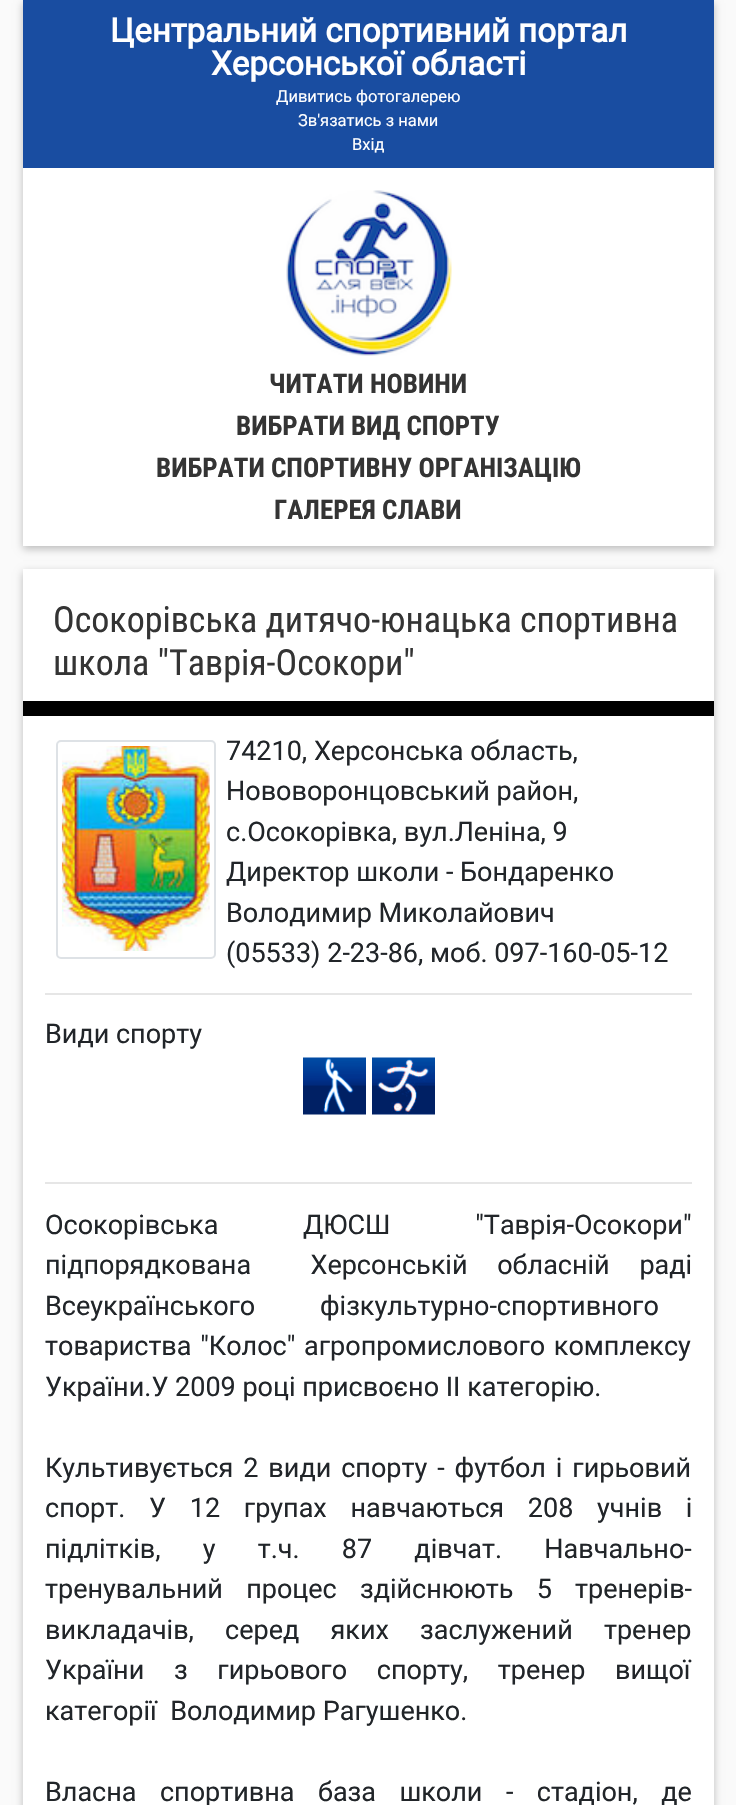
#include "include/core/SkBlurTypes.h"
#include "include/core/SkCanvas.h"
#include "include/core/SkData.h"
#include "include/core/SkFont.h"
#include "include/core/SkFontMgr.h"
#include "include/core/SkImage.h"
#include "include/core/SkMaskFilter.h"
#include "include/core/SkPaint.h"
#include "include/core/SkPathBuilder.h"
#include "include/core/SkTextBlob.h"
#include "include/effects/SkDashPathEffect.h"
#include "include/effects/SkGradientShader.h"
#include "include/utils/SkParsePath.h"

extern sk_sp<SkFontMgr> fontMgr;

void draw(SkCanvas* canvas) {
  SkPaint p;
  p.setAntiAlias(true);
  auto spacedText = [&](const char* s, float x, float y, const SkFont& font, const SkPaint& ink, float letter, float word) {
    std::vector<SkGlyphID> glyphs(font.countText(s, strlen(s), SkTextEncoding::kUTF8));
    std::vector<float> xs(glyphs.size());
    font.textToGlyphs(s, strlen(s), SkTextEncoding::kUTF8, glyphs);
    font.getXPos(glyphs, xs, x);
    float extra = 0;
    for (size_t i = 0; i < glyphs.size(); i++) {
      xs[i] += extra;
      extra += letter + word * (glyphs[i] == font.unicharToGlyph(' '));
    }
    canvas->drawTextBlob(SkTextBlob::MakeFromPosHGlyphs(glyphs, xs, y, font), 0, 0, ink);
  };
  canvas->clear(SkColorSetRGB(250, 250, 250));
  p.setColor(SkColorSetARGB(64, 0, 0, 0));
  p.setMaskFilter(SkMaskFilter::MakeBlur(kNormal_SkBlurStyle, 4));
  canvas->drawRect(SkRect::MakeLTRB(23, 3, 714, 549), p);
  p.setMaskFilter(nullptr);
  p.setColor(SK_ColorWHITE);
  canvas->drawRect(SkRect::MakeLTRB(23, 168, 714, 546), p);
  p.setColor(SkColorSetRGB(25, 77, 161));
  canvas->drawRect(SkRect::MakeLTRB(23, 0, 714, 168), p);
  canvas->drawImageRect(SkImages::DeferredFromEncodedData(SkData::MakeFromFileName("images/1.png")), SkRect::MakeLTRB(286, 190, 452, 356), SkSamplingOptions());
  p.setColor(SkColorSetARGB(64, 0, 0, 0));
  p.setMaskFilter(SkMaskFilter::MakeBlur(kNormal_SkBlurStyle, 4));
  canvas->drawRect(SkRect::MakeLTRB(23, 572, 714, 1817), p);
  p.setMaskFilter(nullptr);
  p.setColor(SK_ColorWHITE);
  canvas->drawRect(SkRect::MakeLTRB(23, 569, 714, 1805), p);
  p.setColor(SK_ColorBLACK);
  canvas->drawRect(SkRect::MakeLTRB(23, 701, 714, 716), p);
  p.setStyle(SkPaint::kStroke_Style);
  p.setStrokeWidth(2);
  p.setColor(SkColorSetRGB(222, 226, 230));
  canvas->drawRoundRect(SkRect::MakeLTRB(57, 741, 215, 958), 4, 4, p);
  canvas->drawImageRect(SkImages::DeferredFromEncodedData(SkData::MakeFromFileName("images/2.png")), SkRect::MakeLTRB(61, 746, 210, 951), SkSamplingOptions());
  p.setStyle(SkPaint::kFill_Style);
  p.setColor(SkColorSetRGB(230, 230, 230));
  canvas->drawRect(SkRect::MakeLTRB(45, 993, 692, 995), p);
  canvas->drawImageRect(SkImages::DeferredFromEncodedData(SkData::MakeFromFileName("images/3.png")), SkRect::MakeLTRB(303, 1057, 366, 1115), SkSamplingOptions());
  canvas->drawImageRect(SkImages::DeferredFromEncodedData(SkData::MakeFromFileName("images/4.png")), SkRect::MakeLTRB(372, 1057, 435, 1115), SkSamplingOptions());
  canvas->drawRect(SkRect::MakeLTRB(45, 1182, 692, 1184), p);
  SkFont font1(fontMgr->matchFamilyStyle("Roboto", SkFontStyle::Bold()), 33);
  font1.setSubpixel(true);
  p.setColor(SK_ColorWHITE);
  canvas->drawString("Центральний спортивний портал", 110, 42, font1, p);
  canvas->drawString("Херсонської області", 211, 75, font1, p);
  SkFont font2(fontMgr->matchFamilyStyle("Roboto", SkFontStyle::Normal()), 16.5f);
  font2.setSubpixel(true);
  canvas->drawString("Дивитись фотогалерею", 276, 102, font2, p);
  canvas->drawString("Зв'язатись з нами", 298, 126, font2, p);
  canvas->drawString("Вхід", 352, 150, font2, p);
  SkFont font3(fontMgr->matchFamilyStyle("Roboto Condensed", SkFontStyle::Bold()), 27);
  font3.setSubpixel(true);
  p.setColor(SkColorSetRGB(52, 52, 52));
  canvas->drawString("ЧИТАТИ НОВИНИ", 269, 393, font3, p);
  canvas->drawString("ВИБРАТИ ВИД СПОРТУ", 236, 435, font3, p);
  canvas->drawString("ВИБРАТИ СПОРТИВНУ ОРГАНIЗАЦIЮ", 156, 477, font3, p);
  canvas->drawString("ГАЛЕРЕЯ СЛАВИ", 274, 519, font3, p);
  SkFont font4(fontMgr->matchFamilyStyle("Roboto Condensed", SkFontStyle::Normal()), 36);
  font4.setSubpixel(true);
  canvas->drawString("Осокорівська дитячо-юнацька спортивна", 53, 632, font4, p);
  canvas->drawString("школа \"Таврія-Осокори\"", 53, 675, font4, p);
  SkFont font5(fontMgr->matchFamilyStyle("Roboto", SkFontStyle::Normal()), 27);
  font5.setSubpixel(true);
  p.setColor(SkColorSetRGB(33, 37, 41));
  canvas->drawString("74210, Херсонська область,", 226, 760, font5, p);
  canvas->drawString("Нововоронцовський район,", 226, 800, font5, p);
  canvas->drawString("с.Осокорівка, вул.Леніна, 9", 226, 841, font5, p);
  canvas->drawString("Директор школи - Бондаренко", 226, 881, font5, p);
  canvas->drawString("Володимир Миколайович", 226, 922, font5, p);
  canvas->drawString("(05533) 2-23-86, моб. 097-160-05-12", 226, 962, font5, p);
  canvas->drawString("Види спорту", 45, 1043, font5, p);
  spacedText("Осокорівська ДЮСШ \"Таврія-Осокори\"", 45, 1234, font5, p, 0, 78);
  spacedText("підпорядкована  Херсонській обласній раді", 45, 1274, font5, p, 0, 23);
  canvas->drawString("Всеукраїнського", 45, 1315, font5, p);
  canvas->drawString("фізкультурно-спортивного", 320, 1315, font5, p);
  spacedText("товариства \"Колос\" агропромислового комплексу", 45, 1355, font5, p, 0, 2);
  canvas->drawString("України.У 2009 році присвоєно ІІ категорію.", 45, 1396, font5, p);
  spacedText("Культивується 2 види спорту - футбол і гирьовий", 45, 1477, font5, p, 0, 3.25f);
  spacedText("спорт. У 12 групах навчаються 208 учнів і", 45, 1517, font5, p, 0, 17);
  spacedText("підлітків, у т.ч. 87 дівчат. Навчально-", 45, 1558, font5, p, 0, 35.5f);
  spacedText("тренувальний процес здійснюють 5 тренерів-", 45, 1598, font5, p, 0, 16.5f);
  spacedText("викладачів, серед яких заслужений тренер", 45, 1639, font5, p, 0, 24.5f);
  spacedText("України з гирьового спорту, тренер вищої", 45, 1679, font5, p, 0, 23);
  canvas->drawString("категорії  Володимир Рагушенко.", 45, 1720, font5, p);
  spacedText("Власна спортивна база школи - стадіон, де", 45, 1801, font5, p, 0, 16.75f);
}
